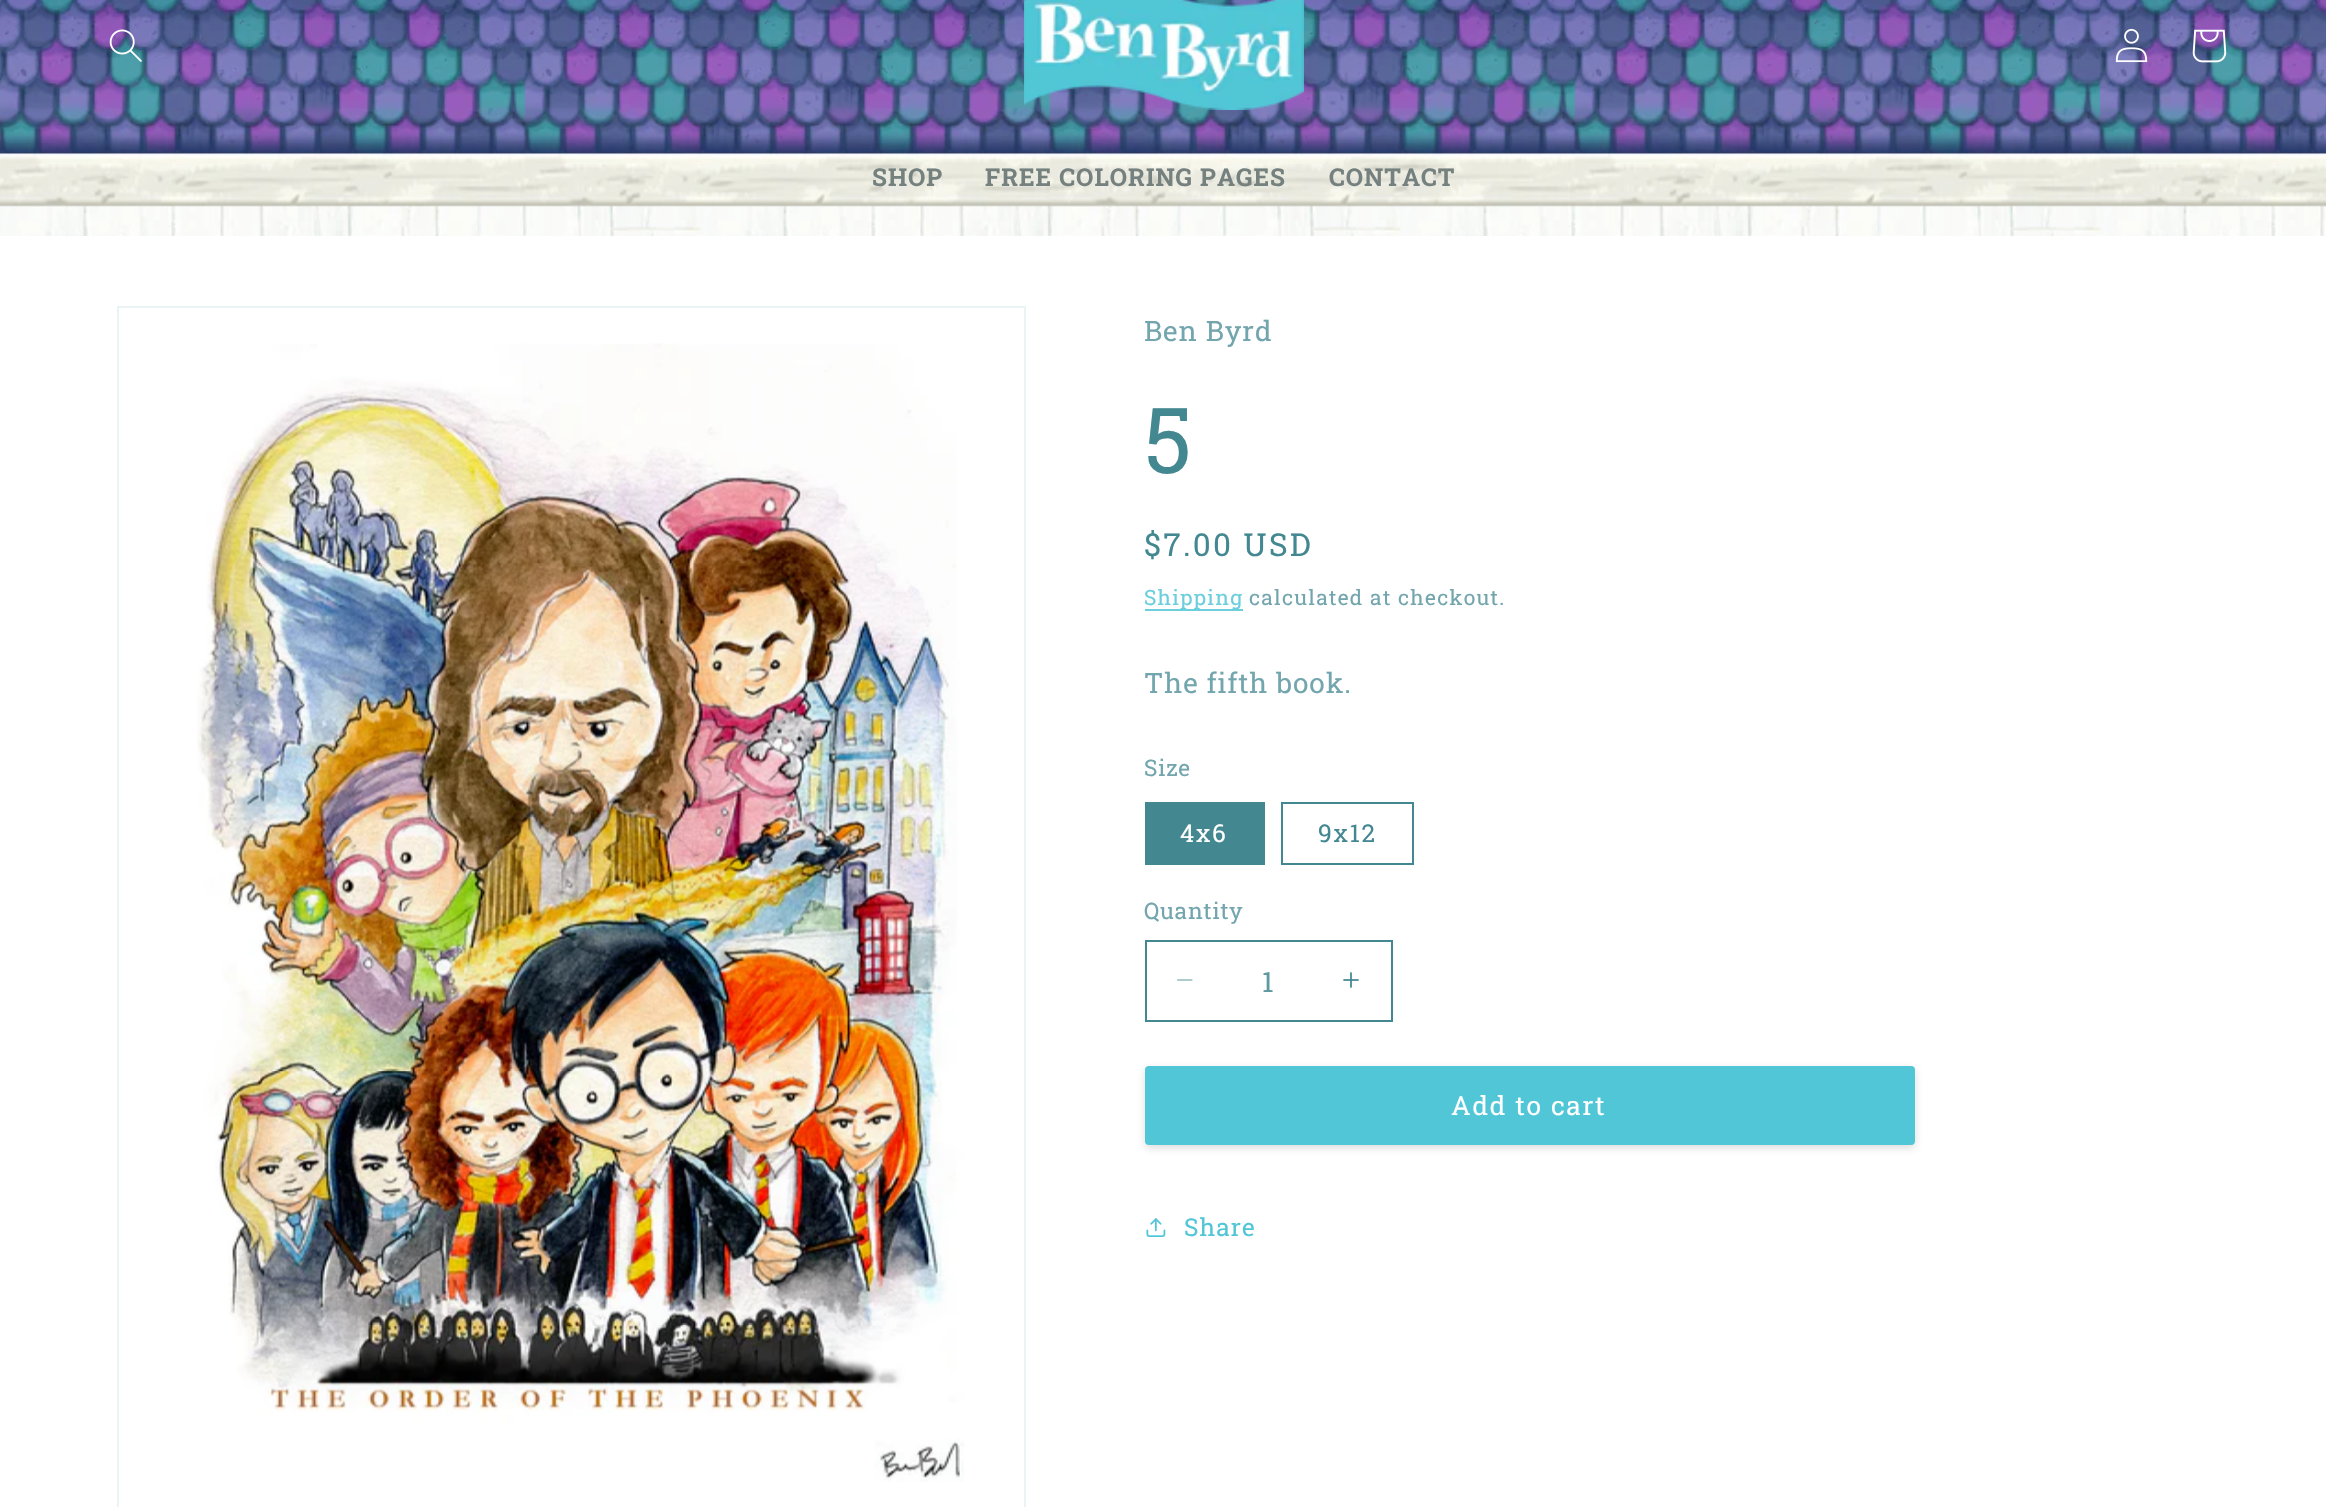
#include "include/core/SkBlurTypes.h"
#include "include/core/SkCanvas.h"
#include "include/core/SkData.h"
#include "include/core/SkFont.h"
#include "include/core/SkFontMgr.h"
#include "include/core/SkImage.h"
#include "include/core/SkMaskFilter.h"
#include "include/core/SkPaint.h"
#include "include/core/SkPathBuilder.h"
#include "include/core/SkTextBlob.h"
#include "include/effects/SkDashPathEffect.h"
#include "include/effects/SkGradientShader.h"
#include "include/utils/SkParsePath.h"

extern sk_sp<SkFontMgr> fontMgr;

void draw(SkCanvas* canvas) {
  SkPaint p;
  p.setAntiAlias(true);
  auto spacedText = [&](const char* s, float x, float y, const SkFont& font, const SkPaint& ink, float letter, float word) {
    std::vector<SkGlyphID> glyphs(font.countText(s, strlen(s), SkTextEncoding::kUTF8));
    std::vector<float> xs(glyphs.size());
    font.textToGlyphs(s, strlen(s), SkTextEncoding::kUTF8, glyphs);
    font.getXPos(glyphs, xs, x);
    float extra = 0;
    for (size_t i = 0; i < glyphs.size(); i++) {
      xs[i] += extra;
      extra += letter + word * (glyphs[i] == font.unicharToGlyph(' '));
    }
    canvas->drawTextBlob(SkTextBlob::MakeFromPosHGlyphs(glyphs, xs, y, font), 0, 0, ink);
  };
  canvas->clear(SK_ColorWHITE);
  canvas->drawImageRect(SkImages::DeferredFromEncodedData(SkData::MakeFromFileName("images/1.png")), SkRect::MakeLTRB(0, 149, 2326, 236), SkSamplingOptions());
  canvas->drawImageRect(SkImages::DeferredFromEncodedData(SkData::MakeFromFileName("images/2.png")), SkRect::MakeLTRB(0, 0, 2326, 207), SkSamplingOptions());
  canvas->drawImageRect(SkImages::DeferredFromEncodedData(SkData::MakeFromFileName("images/3.png")), SkRect::MakeLTRB(109, 29, 142, 62), SkSamplingOptions());
  canvas->drawImageRect(SkImages::DeferredFromEncodedData(SkData::MakeFromFileName("images/4.png")), SkRect::MakeLTRB(1024, 0, 1304, 110), SkSamplingOptions());
  canvas->drawImageRect(SkImages::DeferredFromEncodedData(SkData::MakeFromFileName("images/5.png")), SkRect::MakeLTRB(2115, 28, 2148, 63), SkSamplingOptions());
  canvas->drawImageRect(SkImages::DeferredFromEncodedData(SkData::MakeFromFileName("images/6.png")), SkRect::MakeLTRB(2192, 29, 2227, 63), SkSamplingOptions());
  p.setStyle(SkPaint::kStroke_Style);
  p.setStrokeWidth(2);
  p.setColor(SkColorSetRGB(236, 243, 244));
  canvas->drawRect(SkRect::MakeLTRB(118, 307, 1025, 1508), p);
  canvas->drawImageRect(SkImages::DeferredFromEncodedData(SkData::MakeFromFileName("images/7.png")), SkRect::MakeLTRB(197, 343, 964, 1482), SkSamplingOptions());
  p.setStyle(SkPaint::kFill_Style);
  p.setColor(SkColorSetRGB(107, 207, 220));
  canvas->drawRect(SkRect::MakeLTRB(1145, 609, 1243, 611), p);
  p.setColor(SkColorSetRGB(67, 135, 145));
  canvas->drawRect(SkRect::MakeLTRB(1145, 802, 1265, 865), p);
  p.setStyle(SkPaint::kStroke_Style);
  canvas->drawRect(SkRect::MakeLTRB(1282, 803, 1413, 864), p);
  canvas->drawImageRect(SkImages::DeferredFromEncodedData(SkData::MakeFromFileName("images/8.png")), SkRect::MakeLTRB(1177, 979, 1193, 981), SkSamplingOptions());
  canvas->drawImageRect(SkImages::DeferredFromEncodedData(SkData::MakeFromFileName("images/9.png")), SkRect::MakeLTRB(1343, 972, 1359, 988), SkSamplingOptions());
  canvas->drawRect(SkRect::MakeLTRB(1146, 941, 1392, 1021), p);
  p.setStyle(SkPaint::kFill_Style);
  p.setColor(SkColorSetARGB(38, 17, 21, 28));
  p.setMaskFilter(SkMaskFilter::MakeBlur(kNormal_SkBlurStyle, 4.5f));
  canvas->drawRoundRect(SkRect::MakeLTRB(1145, 1069, 1915, 1148), 4, 4, p);
  p.setMaskFilter(nullptr);
  p.setColor(SkColorSetRGB(81, 198, 214));
  canvas->drawRoundRect(SkRect::MakeLTRB(1145, 1066, 1915, 1145), 4, 4, p);
  canvas->drawImageRect(SkImages::DeferredFromEncodedData(SkData::MakeFromFileName("images/10.png")), SkRect::MakeLTRB(1146, 1218, 1166, 1237), SkSamplingOptions());
  SkFont font1(fontMgr->matchFamilyStyle("Roboto Slab", SkFontStyle::Bold()), 24.5f);
  font1.setSubpixel(true);
  p.setColor(SkColorSetRGB(117, 129, 127));
  spacedText("SHOP", 872, 186, font1, p, 1, 0);
  spacedText("FREE COLORING PAGES", 985, 186, font1, p, 1, 0);
  spacedText("CONTACT", 1329, 186, font1, p, 1, 0);
  SkFont font2(fontMgr->matchFamilyStyle("Roboto Slab", SkFontStyle::Normal()), 28);
  font2.setSubpixel(true);
  p.setColor(SkColorSetRGB(114, 165, 173));
  spacedText("Ben Byrd", 1144, 341, font2, p, 1, 0);
  SkFont font3(fontMgr->matchFamilyStyle("Roboto Slab", SkFontStyle::Normal()), 91);
  font3.setSubpixel(true);
  p.setColor(SkColorSetRGB(67, 135, 145));
  spacedText("5", 1144, 473, font3, p, 1, 0);
  SkFont font4(fontMgr->matchFamilyStyle("Roboto Slab", SkFontStyle::Normal()), 31.5f);
  font4.setSubpixel(true);
  spacedText("$7.00 USD", 1144, 556, font4, p, 2.25f, 0);
  SkFont font5(fontMgr->matchFamilyStyle("Roboto Slab", SkFontStyle::Normal()), 21);
  font5.setSubpixel(true);
  p.setColor(SkColorSetRGB(107, 206, 220));
  spacedText("Shipping", 1144, 605, font5, p, 1.25f, 0);
  p.setColor(SkColorSetRGB(114, 165, 173));
  spacedText("calculated at checkout.", 1249, 605, font5, p, 1.25f, 0);
  spacedText("The fifth book.", 1144, 693, font2, p, 1, 0);
  SkFont font6(fontMgr->matchFamilyStyle("Roboto Slab", SkFontStyle::Normal()), 22.75f);
  font6.setSubpixel(true);
  spacedText("Size", 1144, 776, font6, p, 0.75f, 0);
  SkFont font7(fontMgr->matchFamilyStyle("Roboto Slab", SkFontStyle::Normal()), 24.5f);
  font7.setSubpixel(true);
  p.setColor(SK_ColorWHITE);
  spacedText("4x6", 1180, 842, font7, p, 1.75f, 0);
  p.setColor(SkColorSetRGB(67, 135, 145));
  spacedText("9x12", 1318, 842, font7, p, 1.75f, 0);
  p.setColor(SkColorSetRGB(114, 165, 173));
  spacedText("Quantity", 1144, 919, font6, p, 0.75f, 0);
  p.setColor(SkColorSetRGB(95, 153, 162));
  canvas->drawString("1", 1262, 992, font2, p);
  SkFont font8(fontMgr->matchFamilyStyle("Roboto Slab", SkFontStyle::Normal()), 26.25f);
  font8.setSubpixel(true);
  p.setColor(SK_ColorWHITE);
  spacedText("Add to cart", 1451, 1115, font8, p, 1.75f, 0);
  p.setColor(SkColorSetRGB(81, 198, 214));
  spacedText("Share", 1184, 1236, font7, p, 1, 0);
}
